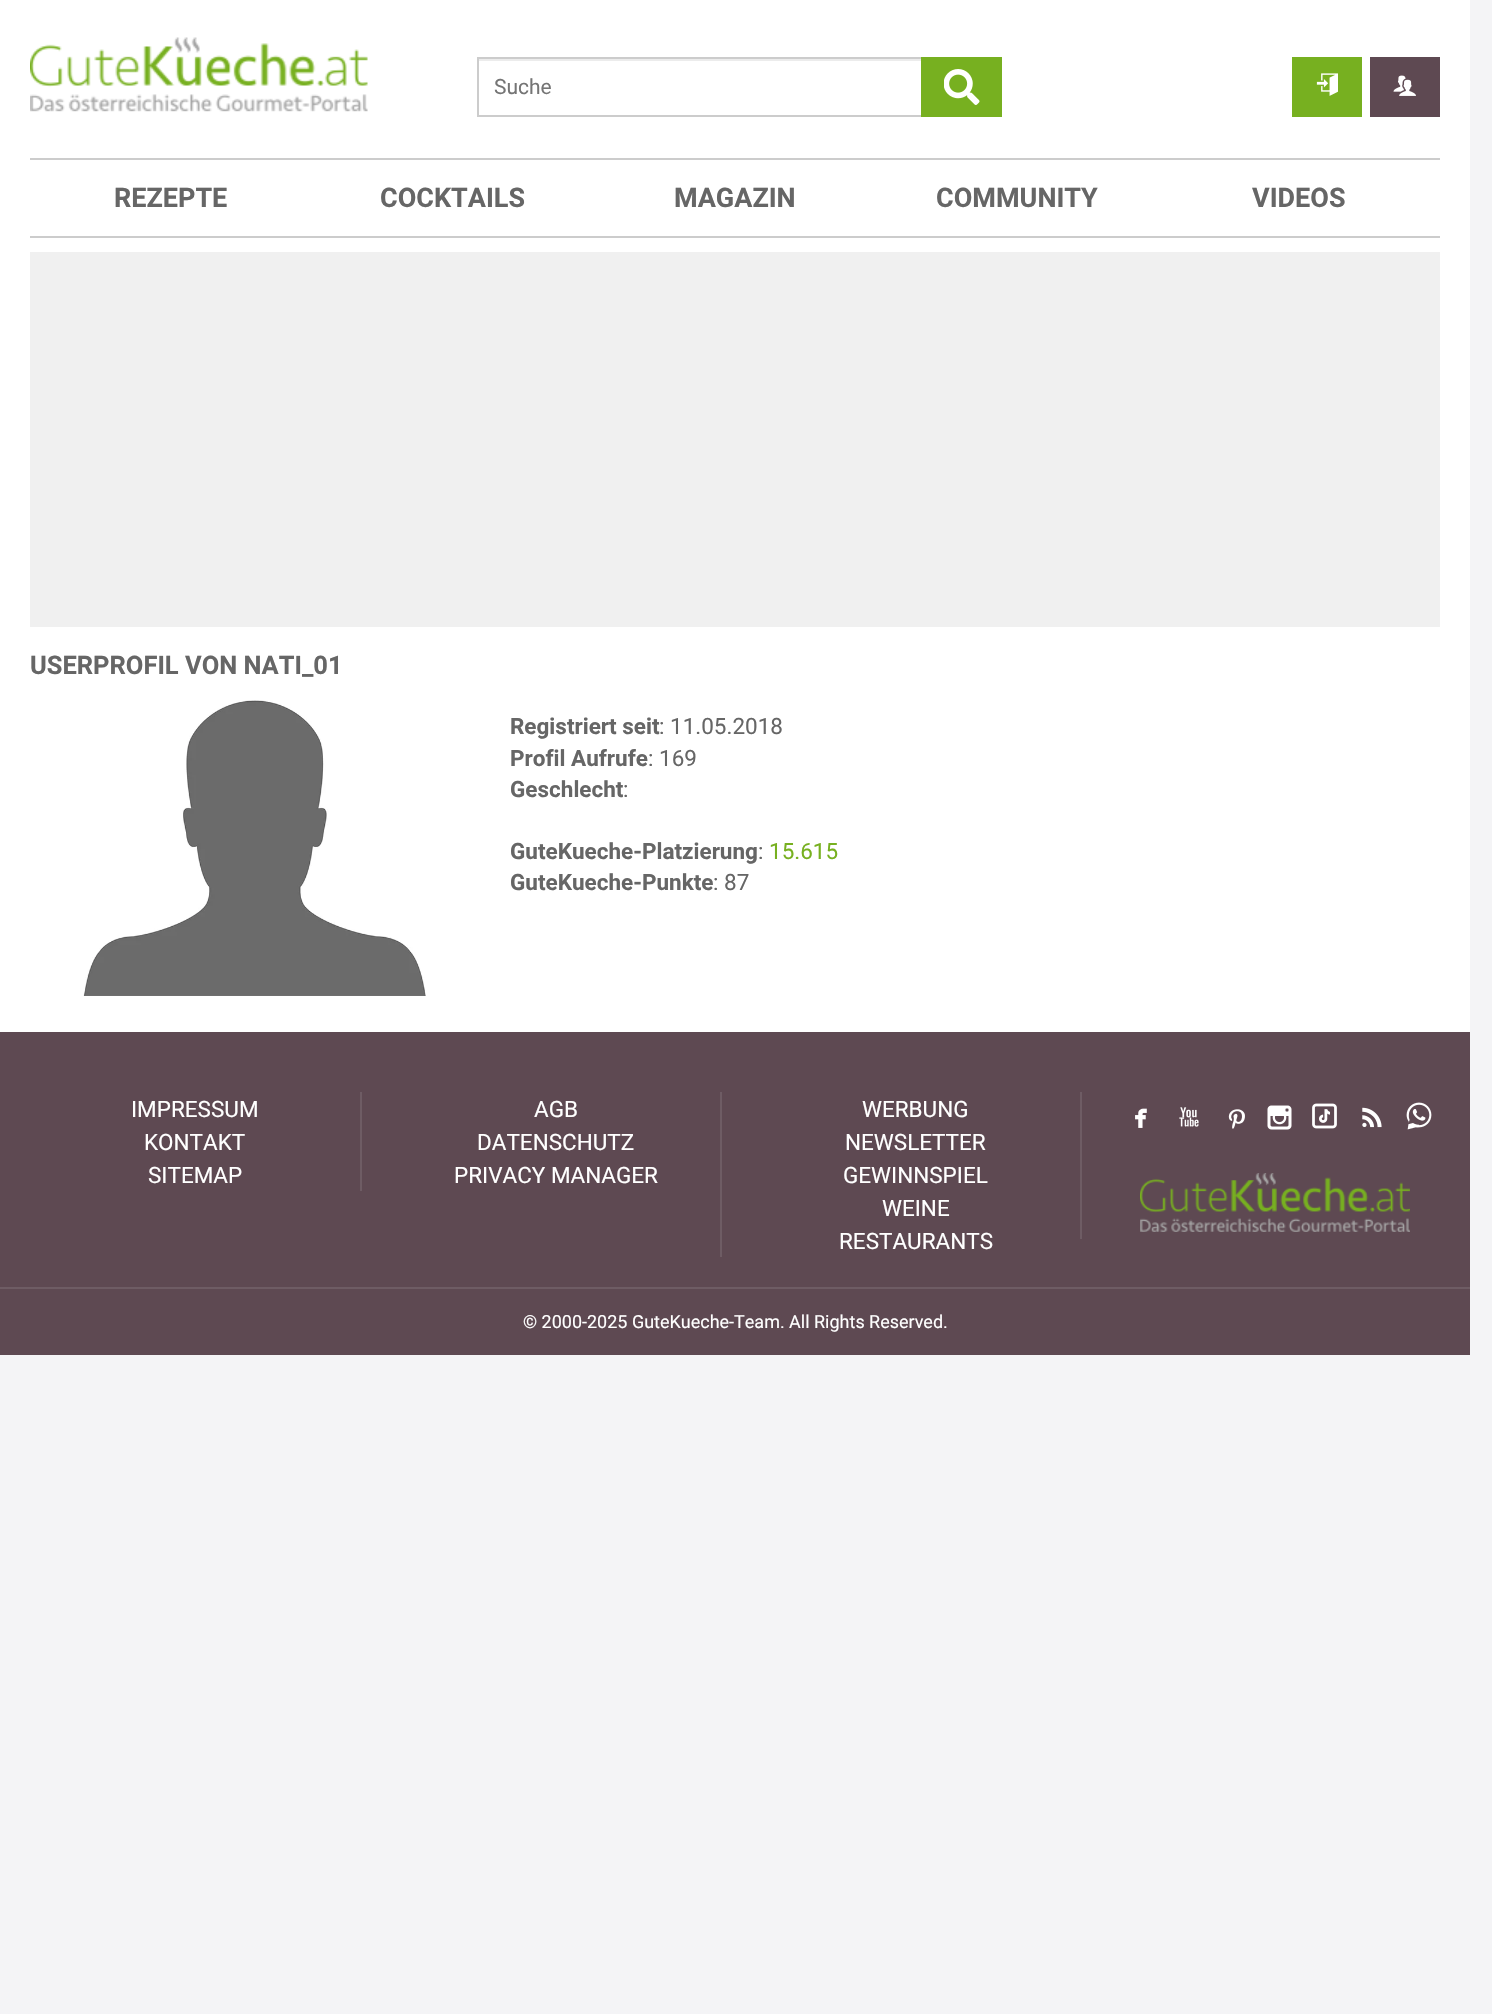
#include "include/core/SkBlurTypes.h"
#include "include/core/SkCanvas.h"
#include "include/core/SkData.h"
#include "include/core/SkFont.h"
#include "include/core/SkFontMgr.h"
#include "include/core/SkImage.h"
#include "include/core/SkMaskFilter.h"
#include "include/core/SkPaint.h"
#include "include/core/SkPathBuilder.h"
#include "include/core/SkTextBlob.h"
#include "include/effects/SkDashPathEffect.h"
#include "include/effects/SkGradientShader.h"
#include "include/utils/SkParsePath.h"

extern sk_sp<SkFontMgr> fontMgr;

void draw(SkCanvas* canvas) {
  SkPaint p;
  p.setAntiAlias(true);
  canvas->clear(SkColorSetRGB(244, 244, 246));
  p.setColor(SK_ColorWHITE);
  canvas->drawRect(SkRect::MakeLTRB(0, 0, 1470, 1032), p);
  canvas->drawImageRect(SkImages::DeferredFromEncodedData(SkData::MakeFromFileName("images/1.png")), SkRect::MakeLTRB(30, 37, 368, 112), SkSamplingOptions());
  p.setColor(SkColorSetRGB(236, 236, 236));
  canvas->drawRect(SkRect::MakeLTRB(479, 59, 921, 61), p);
  p.setStyle(SkPaint::kStroke_Style);
  p.setStrokeWidth(2);
  p.setColor(SkColorSetRGB(204, 204, 204));
  canvas->drawRect(SkRect::MakeLTRB(478, 58, 1001, 116), p);
  p.setStyle(SkPaint::kFill_Style);
  p.setColor(SkColorSetRGB(119, 176, 32));
  canvas->drawRect(SkRect::MakeLTRB(921, 57, 1002, 117), p);
  canvas->drawImageRect(SkImages::DeferredFromEncodedData(SkData::MakeFromFileName("images/2.png")), SkRect::MakeLTRB(944, 69, 980, 105), SkSamplingOptions());
  canvas->drawRect(SkRect::MakeLTRB(1292, 57, 1362, 117), p);
  canvas->drawImageRect(SkImages::DeferredFromEncodedData(SkData::MakeFromFileName("images/3.png")), SkRect::MakeLTRB(1316, 73, 1338, 96), SkSamplingOptions());
  p.setColor(SkColorSetRGB(94, 73, 82));
  canvas->drawRect(SkRect::MakeLTRB(1370, 57, 1440, 117), p);
  canvas->drawImageRect(SkImages::DeferredFromEncodedData(SkData::MakeFromFileName("images/4.png")), SkRect::MakeLTRB(1393, 75, 1416, 96), SkSamplingOptions());
  p.setColor(SkColorSetRGB(204, 204, 204));
  canvas->drawRect(SkRect::MakeLTRB(30, 158, 1440, 160), p);
  canvas->drawRect(SkRect::MakeLTRB(30, 236, 1440, 238), p);
  p.setColor(SkColorSetRGB(240, 240, 240));
  canvas->drawRect(SkRect::MakeLTRB(30, 252, 1440, 627), p);
  canvas->drawImageRect(SkImages::DeferredFromEncodedData(SkData::MakeFromFileName("images/5.png")), SkRect::MakeLTRB(83, 700, 426, 996), SkSamplingOptions());
  p.setColor(SkColorSetRGB(94, 73, 82));
  canvas->drawRect(SkRect::MakeLTRB(0, 1032, 1470, 1355), p);
  p.setColor(SkColorSetRGB(110, 92, 100));
  canvas->drawRect(SkRect::MakeLTRB(360, 1092, 362, 1191), p);
  canvas->drawRect(SkRect::MakeLTRB(720, 1092, 722, 1257), p);
  canvas->drawRect(SkRect::MakeLTRB(1080, 1092, 1082, 1239), p);
  canvas->drawImageRect(SkImages::DeferredFromEncodedData(SkData::MakeFromFileName("images/6.png")), SkRect::MakeLTRB(1135, 1108, 1147, 1128), SkSamplingOptions());
  canvas->drawImageRect(SkImages::DeferredFromEncodedData(SkData::MakeFromFileName("images/7.png")), SkRect::MakeLTRB(1179, 1107, 1199, 1127), SkSamplingOptions());
  canvas->drawImageRect(SkImages::DeferredFromEncodedData(SkData::MakeFromFileName("images/8.png")), SkRect::MakeLTRB(1228, 1109, 1245, 1129), SkSamplingOptions());
  canvas->drawImageRect(SkImages::DeferredFromEncodedData(SkData::MakeFromFileName("images/9.png")), SkRect::MakeLTRB(1267, 1105, 1292, 1130), SkSamplingOptions());
  canvas->drawImageRect(SkImages::DeferredFromEncodedData(SkData::MakeFromFileName("images/10.png")), SkRect::MakeLTRB(1312, 1103, 1337, 1129), SkSamplingOptions());
  canvas->drawImageRect(SkImages::DeferredFromEncodedData(SkData::MakeFromFileName("images/11.png")), SkRect::MakeLTRB(1362, 1107, 1382, 1128), SkSamplingOptions());
  canvas->drawImageRect(SkImages::DeferredFromEncodedData(SkData::MakeFromFileName("images/12.png")), SkRect::MakeLTRB(1406, 1102, 1432, 1130), SkSamplingOptions());
  canvas->drawImageRect(SkImages::DeferredFromEncodedData(SkData::MakeFromFileName("images/13.png")), SkRect::MakeLTRB(1140, 1173, 1410, 1232), SkSamplingOptions());
  canvas->drawRect(SkRect::MakeLTRB(0, 1287, 1470, 1289), p);
  SkFont font1(fontMgr->matchFamilyStyle("Roboto", SkFontStyle::Normal()), 21);
  font1.setSubpixel(true);
  p.setColor(SkColorSetRGB(117, 117, 117));
  canvas->drawString("Suche", 494, 94, font1, p);
  SkFont font2(fontMgr->matchFamilyStyle("Roboto", SkFontStyle::Bold()), 27);
  font2.setSubpixel(true);
  p.setColor(SkColorSetRGB(102, 102, 102));
  canvas->drawString("REZEPTE", 114, 207, font2, p);
  canvas->drawString("COCKTAILS", 380, 207, font2, p);
  canvas->drawString("MAGAZIN", 674, 207, font2, p);
  canvas->drawString("COMMUNITY", 936, 207, font2, p);
  canvas->drawString("VIDEOS", 1252, 207, font2, p);
  SkFont font3(fontMgr->matchFamilyStyle("Roboto", SkFontStyle::Bold()), 25.5f);
  font3.setSubpixel(true);
  canvas->drawString("USERPROFIL VON NATI_01", 30, 674, font3, p);
  SkFont font4(fontMgr->matchFamilyStyle("Roboto", SkFontStyle::Bold()), 22.5f);
  font4.setSubpixel(true);
  canvas->drawString("Registriert seit", 510, 734, font4, p);
  SkFont font5(fontMgr->matchFamilyStyle("Roboto", SkFontStyle::Normal()), 22.5f);
  font5.setSubpixel(true);
  canvas->drawString(": 11.05.2018", 659, 734, font5, p);
  canvas->drawString("Profil Aufrufe", 510, 766, font4, p);
  canvas->drawString(": 169", 648, 766, font5, p);
  canvas->drawString("Geschlecht", 510, 797, font4, p);
  canvas->drawString(":", 623, 797, font5, p);
  canvas->drawString("GuteKueche-Platzierung", 510, 859, font4, p);
  canvas->drawString(":", 758, 859, font5, p);
  p.setColor(SkColorSetRGB(119, 176, 32));
  canvas->drawString("15.615", 769, 859, font5, p);
  p.setColor(SkColorSetRGB(102, 102, 102));
  canvas->drawString("GuteKueche-Punkte", 510, 890, font4, p);
  canvas->drawString(": 87", 713, 890, font5, p);
  p.setColor(SK_ColorWHITE);
  canvas->drawString("IMPRESSUM", 131, 1117, font5, p);
  canvas->drawString("KONTAKT", 144, 1150, font5, p);
  canvas->drawString("SITEMAP", 148, 1183, font5, p);
  canvas->drawString("AGB", 534, 1117, font5, p);
  canvas->drawString("DATENSCHUTZ", 477, 1150, font5, p);
  canvas->drawString("PRIVACY MANAGER", 454, 1183, font5, p);
  canvas->drawString("WERBUNG", 862, 1117, font5, p);
  canvas->drawString("NEWSLETTER", 845, 1150, font5, p);
  canvas->drawString("GEWINNSPIEL", 843, 1183, font5, p);
  canvas->drawString("WEINE", 882, 1216, font5, p);
  canvas->drawString("RESTAURANTS", 839, 1249, font5, p);
  SkFont font6(fontMgr->matchFamilyStyle("Roboto", SkFontStyle::Normal()), 18);
  font6.setSubpixel(true);
  canvas->drawString("© 2000-2025 GuteKueche-Team. All Rights Reserved.", 523, 1328, font6, p);
}
